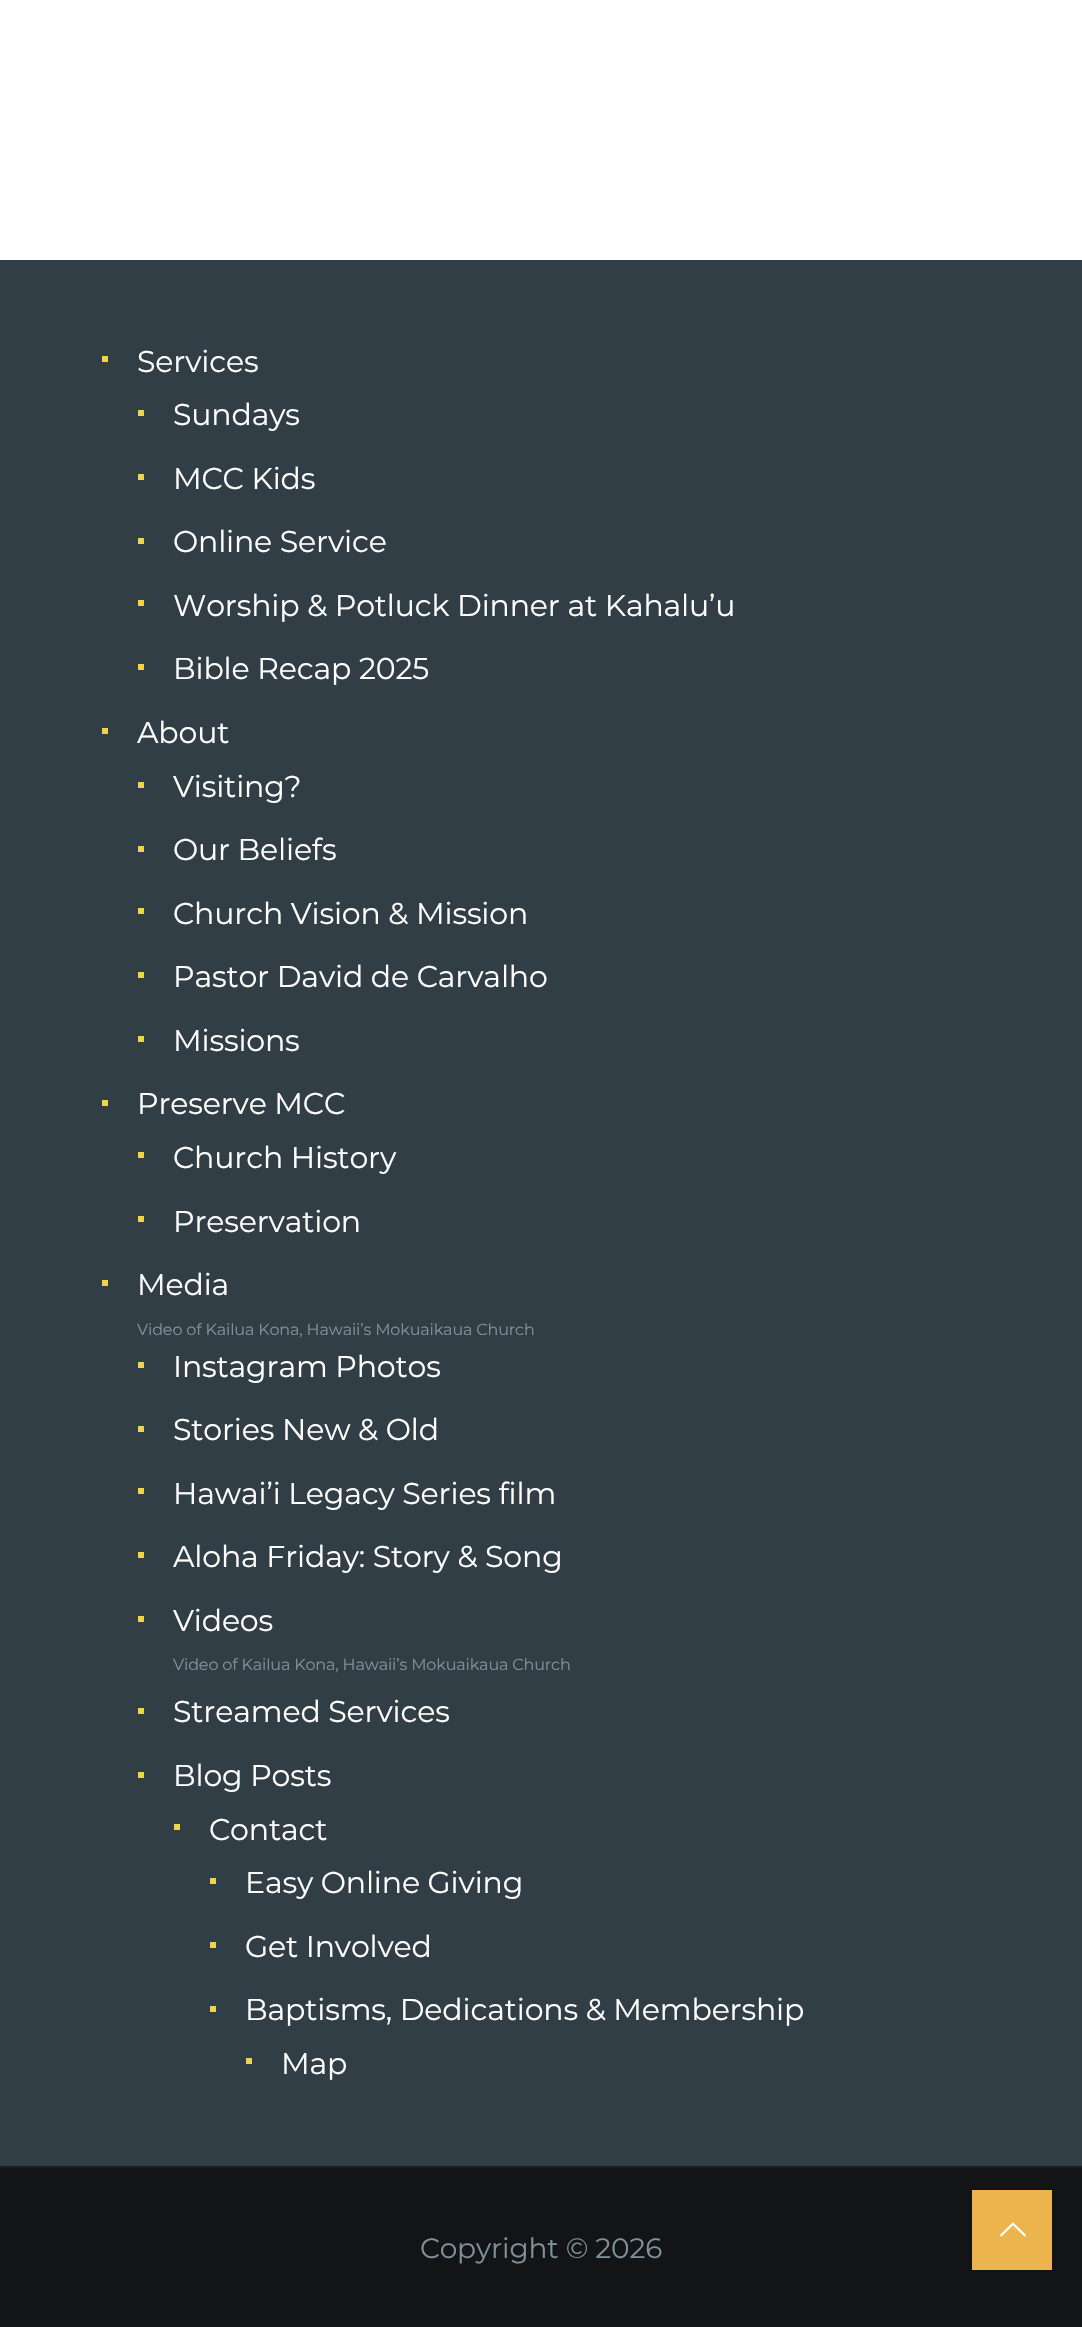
#include "include/core/SkBlurTypes.h"
#include "include/core/SkCanvas.h"
#include "include/core/SkData.h"
#include "include/core/SkFont.h"
#include "include/core/SkFontMgr.h"
#include "include/core/SkImage.h"
#include "include/core/SkMaskFilter.h"
#include "include/core/SkPaint.h"
#include "include/core/SkPathBuilder.h"
#include "include/core/SkTextBlob.h"
#include "include/effects/SkDashPathEffect.h"
#include "include/effects/SkGradientShader.h"
#include "include/utils/SkParsePath.h"

extern sk_sp<SkFontMgr> fontMgr;

void draw(SkCanvas* canvas) {
  SkPaint p;
  p.setAntiAlias(true);
  auto spacedText = [&](const char* s, float x, float y, const SkFont& font, const SkPaint& ink, float letter, float word) {
    std::vector<SkGlyphID> glyphs(font.countText(s, strlen(s), SkTextEncoding::kUTF8));
    std::vector<float> xs(glyphs.size());
    font.textToGlyphs(s, strlen(s), SkTextEncoding::kUTF8, glyphs);
    font.getXPos(glyphs, xs, x);
    float extra = 0;
    for (size_t i = 0; i < glyphs.size(); i++) {
      xs[i] += extra;
      extra += letter + word * (glyphs[i] == font.unicharToGlyph(' '));
    }
    canvas->drawTextBlob(SkTextBlob::MakeFromPosHGlyphs(glyphs, xs, y, font), 0, 0, ink);
  };
  canvas->clear(SkColorSetRGB(50, 62, 69));
  p.setColor(SK_ColorWHITE);
  canvas->drawRect(SkRect::MakeLTRB(0, 0, 1082, 260), p);
  p.setColor(SkColorSetRGB(237, 213, 80));
  canvas->drawRect(SkRect::MakeLTRB(102, 356, 108, 362), p);
  canvas->drawRect(SkRect::MakeLTRB(138, 410, 144, 416), p);
  canvas->drawRect(SkRect::MakeLTRB(138, 474, 144, 480), p);
  canvas->drawRect(SkRect::MakeLTRB(138, 538, 144, 544), p);
  canvas->drawRect(SkRect::MakeLTRB(138, 600, 144, 606), p);
  canvas->drawRect(SkRect::MakeLTRB(138, 664, 144, 670), p);
  canvas->drawRect(SkRect::MakeLTRB(102, 728, 108, 734), p);
  canvas->drawRect(SkRect::MakeLTRB(138, 782, 144, 788), p);
  canvas->drawRect(SkRect::MakeLTRB(138, 846, 144, 852), p);
  canvas->drawRect(SkRect::MakeLTRB(138, 908, 144, 914), p);
  canvas->drawRect(SkRect::MakeLTRB(138, 972, 144, 978), p);
  canvas->drawRect(SkRect::MakeLTRB(138, 1036, 144, 1042), p);
  canvas->drawRect(SkRect::MakeLTRB(102, 1100, 108, 1106), p);
  canvas->drawRect(SkRect::MakeLTRB(138, 1152, 144, 1158), p);
  canvas->drawRect(SkRect::MakeLTRB(138, 1216, 144, 1222), p);
  canvas->drawRect(SkRect::MakeLTRB(102, 1280, 108, 1286), p);
  canvas->drawRect(SkRect::MakeLTRB(138, 1362, 144, 1368), p);
  canvas->drawRect(SkRect::MakeLTRB(138, 1426, 144, 1432), p);
  canvas->drawRect(SkRect::MakeLTRB(138, 1488, 144, 1494), p);
  canvas->drawRect(SkRect::MakeLTRB(138, 1552, 144, 1558), p);
  canvas->drawRect(SkRect::MakeLTRB(138, 1616, 144, 1622), p);
  canvas->drawRect(SkRect::MakeLTRB(138, 1708, 144, 1714), p);
  canvas->drawRect(SkRect::MakeLTRB(138, 1772, 144, 1778), p);
  canvas->drawRect(SkRect::MakeLTRB(174, 1824, 180, 1830), p);
  canvas->drawRect(SkRect::MakeLTRB(210, 1878, 216, 1884), p);
  canvas->drawRect(SkRect::MakeLTRB(210, 1942, 216, 1948), p);
  canvas->drawRect(SkRect::MakeLTRB(210, 2006, 216, 2012), p);
  canvas->drawRect(SkRect::MakeLTRB(246, 2058, 252, 2064), p);
  p.setColor(SkColorSetRGB(18, 20, 21));
  canvas->drawRect(SkRect::MakeLTRB(0, 2168, 1082, 2327), p);
  p.setColor(SkColorSetRGB(28, 31, 32));
  canvas->drawRect(SkRect::MakeLTRB(0, 2166, 1082, 2168), p);
  p.setColor(SkColorSetRGB(235, 180, 76));
  canvas->drawRect(SkRect::MakeLTRB(972, 2190, 1052, 2270), p);
  canvas->drawImageRect(SkImages::DeferredFromEncodedData(SkData::MakeFromFileName("images/1.png")), SkRect::MakeLTRB(1000, 2222, 1026, 2237), SkSamplingOptions());
  SkFont font1(fontMgr->matchFamilyStyle("Montserrat", SkFontStyle::Normal()), 30);
  font1.setSubpixel(true);
  p.setColor(SK_ColorWHITE);
  spacedText("Services", 137, 372, font1, p, -0.15f, 0);
  spacedText("Sundays", 173, 425, font1, p, -0.15f, 0);
  spacedText("MCC Kids", 173, 489, font1, p, -0.15f, 0);
  spacedText("Online Service", 173, 552, font1, p, -0.15f, 0);
  spacedText("Worship & Potluck Dinner at Kahalu’u", 173, 616, font1, p, -0.15f, 0);
  spacedText("Bible Recap 2025", 173, 679, font1, p, -0.15f, 0);
  spacedText("About", 137, 743, font1, p, -0.15f, 0);
  spacedText("Visiting?", 173, 797, font1, p, -0.15f, 0);
  spacedText("Our Beliefs", 173, 860, font1, p, -0.15f, 0);
  spacedText("Church Vision & Mission", 173, 924, font1, p, -0.15f, 0);
  spacedText("Pastor David de Carvalho", 173, 987, font1, p, -0.15f, 0);
  spacedText("Missions", 173, 1051, font1, p, -0.15f, 0);
  spacedText("Preserve MCC", 137, 1114, font1, p, -0.15f, 0);
  spacedText("Church History", 173, 1168, font1, p, -0.15f, 0);
  spacedText("Preservation", 173, 1232, font1, p, -0.15f, 0);
  spacedText("Media", 137, 1295, font1, p, -0.15f, 0);
  SkFont font2(fontMgr->matchFamilyStyle("Montserrat", SkFontStyle::Normal()), 16);
  font2.setSubpixel(true);
  p.setColor(SkColorSetRGB(127, 145, 155));
  spacedText("Video of Kailua Kona, Hawaii’s Mokuaikaua Church", 137, 1335, font2, p, -0.15f, 0);
  p.setColor(SK_ColorWHITE);
  spacedText("Instagram Photos", 173, 1377, font1, p, -0.15f, 0);
  spacedText("Stories New & Old", 173, 1440, font1, p, -0.15f, 0);
  spacedText("Hawai’i Legacy Series film", 173, 1504, font1, p, -0.15f, 0);
  spacedText("Aloha Friday: Story & Song", 173, 1567, font1, p, -0.15f, 0);
  spacedText("Videos", 173, 1631, font1, p, -0.15f, 0);
  p.setColor(SkColorSetRGB(127, 145, 155));
  spacedText("Video of Kailua Kona, Hawaii’s Mokuaikaua Church", 173, 1670, font2, p, -0.15f, 0);
  p.setColor(SK_ColorWHITE);
  spacedText("Streamed Services", 173, 1722, font1, p, -0.15f, 0);
  spacedText("Blog Posts", 173, 1786, font1, p, -0.15f, 0);
  spacedText("Contact", 209, 1840, font1, p, -0.15f, 0);
  spacedText("Easy Online Giving", 245, 1893, font1, p, -0.15f, 0);
  spacedText("Get Involved", 245, 1957, font1, p, -0.15f, 0);
  spacedText("Baptisms, Dedications & Membership", 245, 2020, font1, p, -0.15f, 0);
  spacedText("Map", 281, 2074, font1, p, -0.15f, 0);
  SkFont font3(fontMgr->matchFamilyStyle("Montserrat", SkFontStyle::Normal()), 28);
  font3.setSubpixel(true);
  p.setColor(SkColorSetRGB(127, 145, 155));
  spacedText("Copyright © 2026", 420, 2258, font3, p, -0.15f, 0);
}
